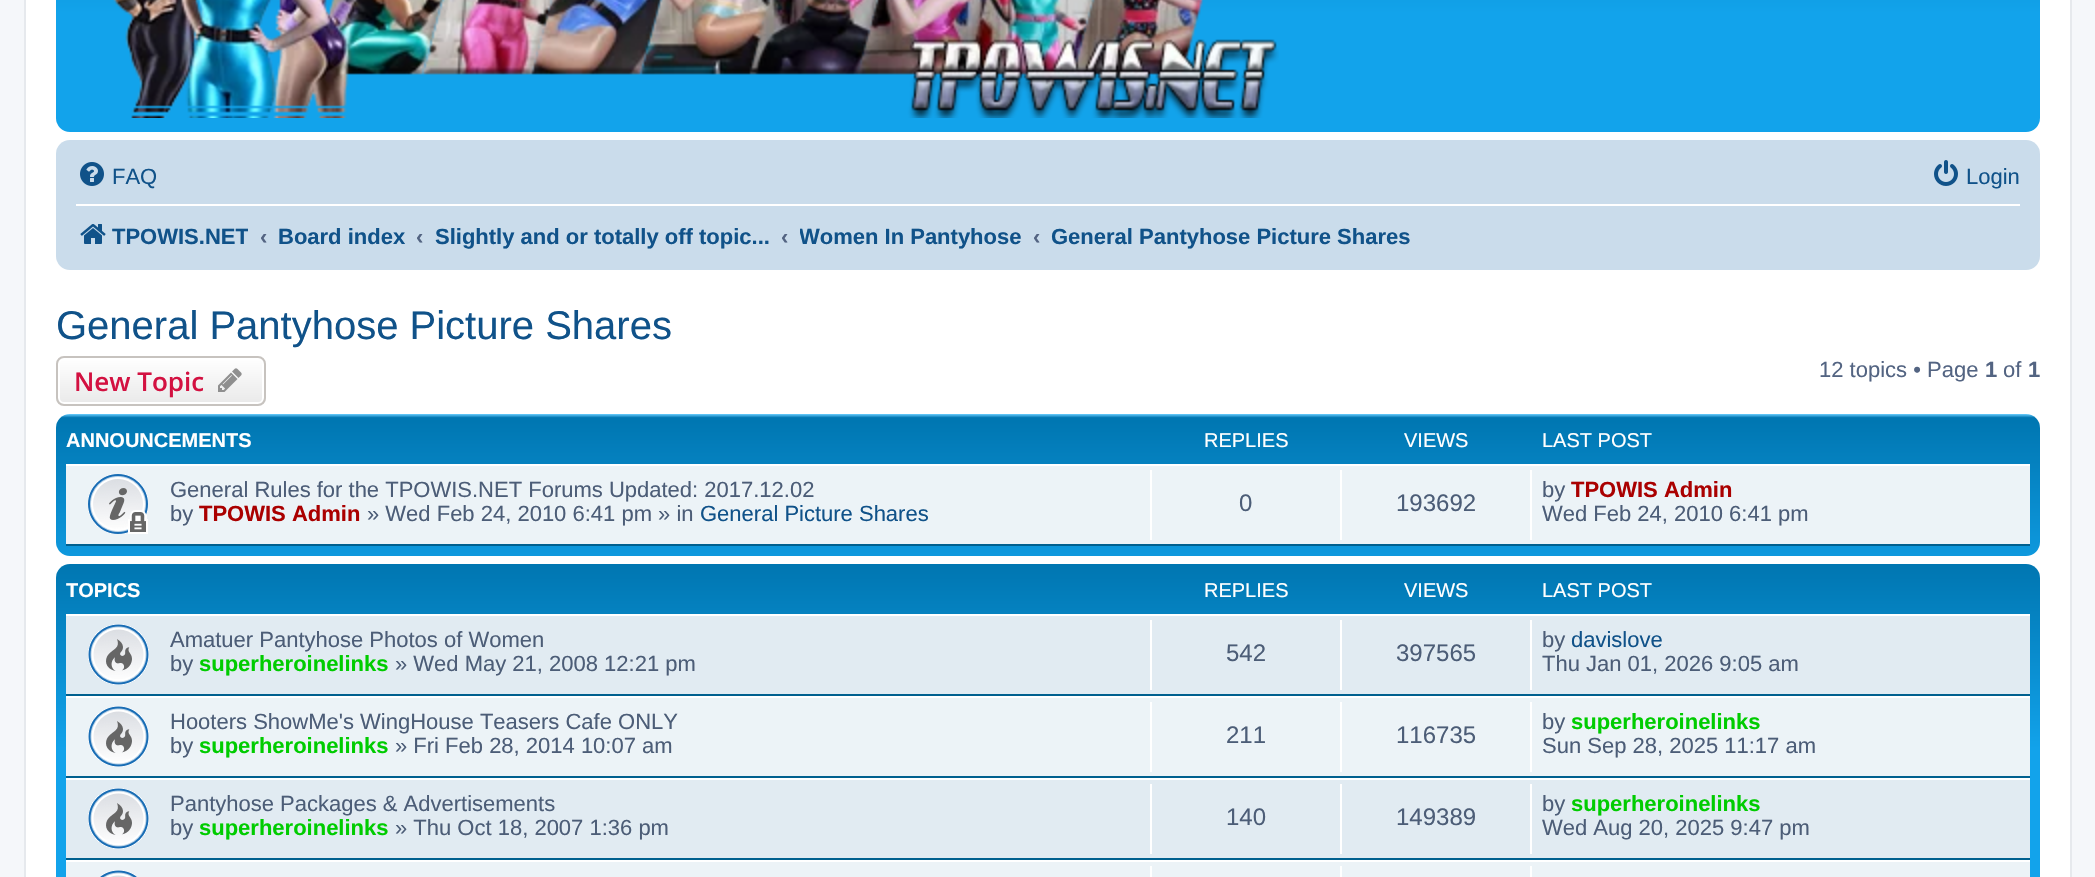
#include "include/core/SkBlurTypes.h"
#include "include/core/SkCanvas.h"
#include "include/core/SkData.h"
#include "include/core/SkFont.h"
#include "include/core/SkFontMgr.h"
#include "include/core/SkImage.h"
#include "include/core/SkMaskFilter.h"
#include "include/core/SkPaint.h"
#include "include/core/SkPathBuilder.h"
#include "include/core/SkTextBlob.h"
#include "include/effects/SkDashPathEffect.h"
#include "include/effects/SkGradientShader.h"
#include "include/utils/SkParsePath.h"

extern sk_sp<SkFontMgr> fontMgr;

void draw(SkCanvas* canvas) {
  SkPaint p;
  p.setAntiAlias(true);
  canvas->clear(SkColorSetRGB(245, 247, 250));
  p.setColor(SK_ColorWHITE);
  canvas->drawRect(SkRect::MakeLTRB(25, -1, 2071, 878), p);
  p.setStyle(SkPaint::kStroke_Style);
  p.setStrokeWidth(2);
  p.setColor(SkColorSetRGB(230, 233, 237));
  canvas->drawRect(SkRect::MakeLTRB(25, -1, 2071, 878), p);
  p.setStyle(SkPaint::kFill_Style);
  {
    const SkColor colors[] = {SkColorSetRGB(106, 206, 255), SkColorSetRGB(0, 118, 177), SkColorSetRGB(18, 163, 235), SkColorSetRGB(18, 163, 235)};
    const float stops[] = {0, 0.01f, 0.61f, 1};
    const SkPoint ends[] = {{1048, -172}, {1048, 132}};
    p.setShader(SkGradientShader::MakeLinear(ends, colors, stops, 4, SkTileMode::kClamp));
    p.setAlpha(255);
  }
  canvas->drawRoundRect(SkRect::MakeLTRB(56, -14, 2040, 132), 14, 14, p);
  canvas->drawImageRect(SkImages::DeferredFromEncodedData(SkData::MakeFromFileName("images/1.png")), SkRect::MakeLTRB(113, 0, 1279, 118), SkSamplingOptions());
  p.setShader(nullptr);
  p.setColor(SkColorSetRGB(202, 220, 235));
  canvas->drawRoundRect(SkRect::MakeLTRB(56, 140, 2040, 270), 14, 14, p);
  canvas->drawImageRect(SkImages::DeferredFromEncodedData(SkData::MakeFromFileName("images/2.png")), SkRect::MakeLTRB(80, 162, 104, 186), SkSamplingOptions());
  canvas->drawImageRect(SkImages::DeferredFromEncodedData(SkData::MakeFromFileName("images/3.png")), SkRect::MakeLTRB(1934, 160, 1958, 186), SkSamplingOptions());
  p.setColor(SK_ColorWHITE);
  canvas->drawRect(SkRect::MakeLTRB(76, 204, 2020, 206), p);
  canvas->drawImageRect(SkImages::DeferredFromEncodedData(SkData::MakeFromFileName("images/4.png")), SkRect::MakeLTRB(80, 224, 106, 244), SkSamplingOptions());
  canvas->save();
  canvas->clipPath(SkPathBuilder().moveTo(64, 356).lineTo(258, 356).cubicTo(262.5f, 356, 266, 359.5f, 266, 364).lineTo(266, 398).cubicTo(266, 402.5f, 262.5f, 406, 258, 406).lineTo(64, 406).cubicTo(59.5f, 406, 56, 402.5f, 56, 398).lineTo(56, 364).cubicTo(56, 359.5f, 59.5f, 356, 64, 356).close().detach(), true);
  {
    const SkColor colors[] = {SK_ColorWHITE, SkColorSetRGB(233, 233, 233)};
    const float stops[] = {0, 1};
    const SkPoint ends[] = {{161, 358}, {161, 404}};
    p.setShader(SkGradientShader::MakeLinear(ends, colors, stops, 2, SkTileMode::kClamp));
    p.setAlpha(255);
  }
  canvas->drawRect(SkRect::MakeLTRB(56, 358, 266, 404), p);
  canvas->restore();
  p.setStyle(SkPaint::kStroke_Style);
  p.setShader(nullptr);
  p.setColor(SK_ColorWHITE);
  canvas->drawRoundRect(SkRect::MakeLTRB(59, 359, 263, 403), 5, 5, p);
  p.setColor(SkColorSetRGB(199, 195, 191));
  canvas->drawRoundRect(SkRect::MakeLTRB(57, 357, 265, 405), 7, 7, p);
  canvas->drawImageRect(SkImages::DeferredFromEncodedData(SkData::MakeFromFileName("images/5.png")), SkRect::MakeLTRB(218, 368, 242, 392), SkSamplingOptions());
  p.setStyle(SkPaint::kFill_Style);
  {
    const SkColor colors[] = {SkColorSetRGB(106, 206, 255), SkColorSetRGB(0, 118, 177), SkColorSetRGB(18, 163, 235)};
    const float stops[] = {0, 0.02f, 1};
    const SkPoint ends[] = {{1048, 414}, {1048, 598}};
    p.setShader(SkGradientShader::MakeLinear(ends, colors, stops, 3, SkTileMode::kClamp));
    p.setAlpha(255);
  }
  canvas->drawRoundRect(SkRect::MakeLTRB(56, 414, 2040, 556), 14, 14, p);
  p.setShader(nullptr);
  p.setColor(SkColorSetRGB(236, 243, 247));
  canvas->drawRect(SkRect::MakeLTRB(66, 466, 2030, 544), p);
  p.setColor(SK_ColorWHITE);
  canvas->drawRect(SkRect::MakeLTRB(66, 464, 2030, 466), p);
  p.setColor(SkColorSetRGB(0, 96, 143));
  canvas->drawRect(SkRect::MakeLTRB(66, 544, 2030, 546), p);
  canvas->drawImageRect(SkImages::DeferredFromEncodedData(SkData::MakeFromFileName("images/6.png")), SkRect::MakeLTRB(88, 474, 148, 534), SkSamplingOptions());
  p.setColor(SK_ColorWHITE);
  canvas->drawRect(SkRect::MakeLTRB(1150, 470, 1152, 540), p);
  canvas->drawRect(SkRect::MakeLTRB(1340, 470, 1342, 540), p);
  canvas->drawRect(SkRect::MakeLTRB(1530, 470, 1532, 540), p);
  {
    const SkColor colors[] = {SkColorSetRGB(106, 206, 255), SkColorSetRGB(0, 118, 177), SkColorSetRGB(18, 163, 235), SkColorSetRGB(18, 163, 235)};
    const float stops[] = {0, 0, 0.18f, 1};
    const SkPoint ends[] = {{1048, 564}, {1048, 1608}};
    p.setShader(SkGradientShader::MakeLinear(ends, colors, stops, 4, SkTileMode::kClamp));
    p.setAlpha(255);
  }
  canvas->drawRoundRect(SkRect::MakeLTRB(56, 564, 2040, 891), 14, 14, p);
  p.setShader(nullptr);
  p.setColor(SkColorSetRGB(225, 235, 242));
  canvas->drawRect(SkRect::MakeLTRB(66, 616, 2030, 694), p);
  p.setColor(SK_ColorWHITE);
  canvas->drawRect(SkRect::MakeLTRB(66, 614, 2030, 616), p);
  p.setColor(SkColorSetRGB(0, 96, 143));
  canvas->drawRect(SkRect::MakeLTRB(66, 694, 2030, 696), p);
  canvas->drawImageRect(SkImages::DeferredFromEncodedData(SkData::MakeFromFileName("images/7.png")), SkRect::MakeLTRB(88, 624, 149, 685), SkSamplingOptions());
  p.setColor(SK_ColorWHITE);
  canvas->drawRect(SkRect::MakeLTRB(1150, 620, 1152, 690), p);
  canvas->drawRect(SkRect::MakeLTRB(1340, 620, 1342, 690), p);
  canvas->drawRect(SkRect::MakeLTRB(1530, 620, 1532, 690), p);
  p.setColor(SkColorSetRGB(236, 243, 247));
  canvas->drawRect(SkRect::MakeLTRB(66, 698, 2030, 776), p);
  p.setColor(SK_ColorWHITE);
  canvas->drawRect(SkRect::MakeLTRB(66, 696, 2030, 698), p);
  p.setColor(SkColorSetRGB(0, 96, 143));
  canvas->drawRect(SkRect::MakeLTRB(66, 776, 2030, 778), p);
  canvas->drawImageRect(SkImages::DeferredFromEncodedData(SkData::MakeFromFileName("images/8.png")), SkRect::MakeLTRB(88, 706, 149, 767), SkSamplingOptions());
  p.setColor(SK_ColorWHITE);
  canvas->drawRect(SkRect::MakeLTRB(1150, 702, 1152, 772), p);
  canvas->drawRect(SkRect::MakeLTRB(1340, 702, 1342, 772), p);
  canvas->drawRect(SkRect::MakeLTRB(1530, 702, 1532, 772), p);
  p.setColor(SkColorSetRGB(225, 235, 242));
  canvas->drawRect(SkRect::MakeLTRB(66, 780, 2030, 858), p);
  p.setColor(SK_ColorWHITE);
  canvas->drawRect(SkRect::MakeLTRB(66, 778, 2030, 780), p);
  p.setColor(SkColorSetRGB(0, 96, 143));
  canvas->drawRect(SkRect::MakeLTRB(66, 858, 2030, 860), p);
  canvas->drawImageRect(SkImages::DeferredFromEncodedData(SkData::MakeFromFileName("images/7.png")), SkRect::MakeLTRB(88, 788, 149, 849), SkSamplingOptions());
  p.setColor(SK_ColorWHITE);
  canvas->drawRect(SkRect::MakeLTRB(1150, 784, 1152, 854), p);
  canvas->drawRect(SkRect::MakeLTRB(1340, 784, 1342, 854), p);
  canvas->drawRect(SkRect::MakeLTRB(1530, 784, 1532, 854), p);
  p.setColor(SkColorSetRGB(236, 243, 247));
  canvas->drawRect(SkRect::MakeLTRB(66, 862, 2030, 877), p);
  p.setColor(SK_ColorWHITE);
  canvas->drawRect(SkRect::MakeLTRB(66, 860, 2030, 862), p);
  canvas->drawImageRect(SkImages::DeferredFromEncodedData(SkData::MakeFromFileName("images/9.png")), SkRect::MakeLTRB(100, 870, 137, 877), SkSamplingOptions());
  canvas->drawRect(SkRect::MakeLTRB(1150, 866, 1152, 877), p);
  canvas->drawRect(SkRect::MakeLTRB(1340, 866, 1342, 877), p);
  canvas->drawRect(SkRect::MakeLTRB(1530, 866, 1532, 877), p);
  SkFont font1(fontMgr->matchFamilyStyle("Liberation Sans", SkFontStyle::Normal()), 22);
  font1.setSubpixel(true);
  p.setColor(SkColorSetRGB(16, 82, 137));
  canvas->drawString("FAQ", 112, 184, font1, p);
  canvas->drawString("Login", 1966, 184, font1, p);
  canvas->save();
  canvas->clipRect(SkRect::MakeLTRB(76, 212, 248, 260));
  SkFont font2(fontMgr->matchFamilyStyle("Liberation Sans", SkFontStyle::Bold()), 22);
  font2.setSubpixel(true);
  canvas->drawString("TPOWIS.NET", 112, 244, font2, p);
  canvas->restore();
  p.setColor(SkColorSetRGB(83, 100, 130));
  canvas->drawString("‹", 260, 244, font2, p);
  p.setColor(SkColorSetRGB(16, 82, 137));
  canvas->drawString("Board index", 278, 244, font2, p);
  p.setColor(SkColorSetRGB(83, 100, 130));
  canvas->drawString("‹", 416, 244, font2, p);
  p.setColor(SkColorSetRGB(16, 82, 137));
  canvas->drawString("Slightly and or totally off topic...", 435, 244, font2, p);
  p.setColor(SkColorSetRGB(83, 100, 130));
  canvas->drawString("‹", 781, 244, font2, p);
  canvas->save();
  canvas->clipRect(SkRect::MakeLTRB(800, 212, 1022, 260));
  p.setColor(SkColorSetRGB(16, 82, 137));
  canvas->drawString("Women In Pantyhose", 799, 244, font2, p);
  canvas->restore();
  p.setColor(SkColorSetRGB(83, 100, 130));
  canvas->drawString("‹", 1033, 244, font2, p);
  p.setColor(SkColorSetRGB(16, 82, 137));
  canvas->drawString("General Pantyhose Picture Shares", 1051, 244, font2, p);
  SkFont font3(fontMgr->matchFamilyStyle("Liberation Sans", SkFontStyle::Normal()), 40);
  font3.setSubpixel(true);
  canvas->drawString("General Pantyhose Picture Shares", 56, 339, font3, p);
  SkFont font4(fontMgr->matchFamilyStyle("Open Sans", SkFontStyle(600, SkFontStyle::kNormal_Width, SkFontStyle::kUpright_Slant)), 26);
  font4.setSubpixel(true);
  p.setColor(SkColorSetRGB(211, 17, 65));
  canvas->drawString("New Topic", 74, 391, font4, p);
  p.setColor(SkColorSetRGB(83, 100, 130));
  canvas->drawString("12 topics • Page", 1819, 377, font1, p);
  canvas->drawString("1", 1985, 377, font2, p);
  canvas->drawString("of", 2003, 377, font1, p);
  canvas->drawString("1", 2028, 377, font2, p);
  SkFont font5(fontMgr->matchFamilyStyle("Liberation Sans", SkFontStyle::Bold()), 20);
  font5.setSubpixel(true);
  p.setColor(SK_ColorWHITE);
  canvas->drawString("ANNOUNCEMENTS", 66, 447, font5, p);
  SkFont font6(fontMgr->matchFamilyStyle("Liberation Sans", SkFontStyle::Normal()), 20);
  font6.setSubpixel(true);
  canvas->drawString("REPLIES", 1204, 447, font6, p);
  canvas->drawString("VIEWS", 1404, 447, font6, p);
  canvas->drawString("LAST POST", 1542, 447, font6, p);
  p.setColor(SkColorSetRGB(76, 93, 119));
  canvas->drawString("General Rules for the TPOWIS.NET Forums Updated: 2017.12.02", 170, 497, font1, p);
  canvas->drawString("by", 170, 521, font1, p);
  p.setColor(SkColorSetRGB(170, 0, 0));
  canvas->drawString("TPOWIS Admin", 199, 521, font2, p);
  p.setColor(SkColorSetRGB(76, 93, 119));
  canvas->drawString("» Wed Feb 24, 2010 6:41 pm » in", 367, 521, font1, p);
  p.setColor(SkColorSetRGB(16, 82, 137));
  canvas->drawString("General Picture Shares", 700, 521, font1, p);
  SkFont font7(fontMgr->matchFamilyStyle("Liberation Sans", SkFontStyle::Normal()), 24);
  font7.setSubpixel(true);
  p.setColor(SkColorSetRGB(76, 93, 119));
  canvas->drawString("0", 1239, 511, font7, p);
  canvas->drawString("193692", 1396, 511, font7, p);
  canvas->drawString("by", 1542, 497, font1, p);
  p.setColor(SkColorSetRGB(170, 0, 0));
  canvas->drawString("TPOWIS Admin", 1571, 497, font2, p);
  p.setColor(SkColorSetRGB(76, 93, 119));
  canvas->drawString("Wed Feb 24, 2010 6:41 pm", 1542, 521, font1, p);
  p.setColor(SK_ColorWHITE);
  canvas->drawString("TOPICS", 66, 597, font5, p);
  canvas->drawString("REPLIES", 1204, 597, font6, p);
  canvas->drawString("VIEWS", 1404, 597, font6, p);
  canvas->drawString("LAST POST", 1542, 597, font6, p);
  p.setColor(SkColorSetRGB(76, 93, 119));
  canvas->drawString("Amatuer Pantyhose Photos of Women", 170, 647, font1, p);
  canvas->drawString("by", 170, 671, font1, p);
  p.setColor(SkColorSetRGB(0, 204, 0));
  canvas->drawString("superheroinelinks", 199, 671, font2, p);
  p.setColor(SkColorSetRGB(76, 93, 119));
  canvas->drawString("» Wed May 21, 2008 12:21 pm", 395, 671, font1, p);
  canvas->drawString("542", 1226, 661, font7, p);
  canvas->drawString("397565", 1396, 661, font7, p);
  canvas->drawString("by", 1542, 647, font1, p);
  p.setColor(SkColorSetRGB(16, 82, 137));
  canvas->drawString("davislove", 1571, 647, font1, p);
  p.setColor(SkColorSetRGB(76, 93, 119));
  canvas->drawString("Thu Jan 01, 2026 9:05 am", 1542, 671, font1, p);
  canvas->drawString("Hooters ShowMe's WingHouse Teasers Cafe ONLY", 170, 729, font1, p);
  canvas->drawString("by", 170, 753, font1, p);
  p.setColor(SkColorSetRGB(0, 204, 0));
  canvas->drawString("superheroinelinks", 199, 753, font2, p);
  p.setColor(SkColorSetRGB(76, 93, 119));
  canvas->drawString("» Fri Feb 28, 2014 10:07 am", 395, 753, font1, p);
  canvas->drawString("211", 1226, 743, font7, p);
  canvas->drawString("116735", 1396, 743, font7, p);
  canvas->drawString("by", 1542, 729, font1, p);
  p.setColor(SkColorSetRGB(0, 204, 0));
  canvas->drawString("superheroinelinks", 1571, 729, font2, p);
  p.setColor(SkColorSetRGB(76, 93, 119));
  canvas->drawString("Sun Sep 28, 2025 11:17 am", 1542, 753, font1, p);
  canvas->drawString("Pantyhose Packages & Advertisements", 170, 811, font1, p);
  canvas->drawString("by", 170, 835, font1, p);
  p.setColor(SkColorSetRGB(0, 204, 0));
  canvas->drawString("superheroinelinks", 199, 835, font2, p);
  p.setColor(SkColorSetRGB(76, 93, 119));
  canvas->drawString("» Thu Oct 18, 2007 1:36 pm", 395, 835, font1, p);
  canvas->drawString("140", 1226, 825, font7, p);
  canvas->drawString("149389", 1396, 825, font7, p);
  canvas->drawString("by", 1542, 811, font1, p);
  p.setColor(SkColorSetRGB(0, 204, 0));
  canvas->drawString("superheroinelinks", 1571, 811, font2, p);
  p.setColor(SkColorSetRGB(76, 93, 119));
  canvas->drawString("Wed Aug 20, 2025 9:47 pm", 1542, 835, font1, p);
}
